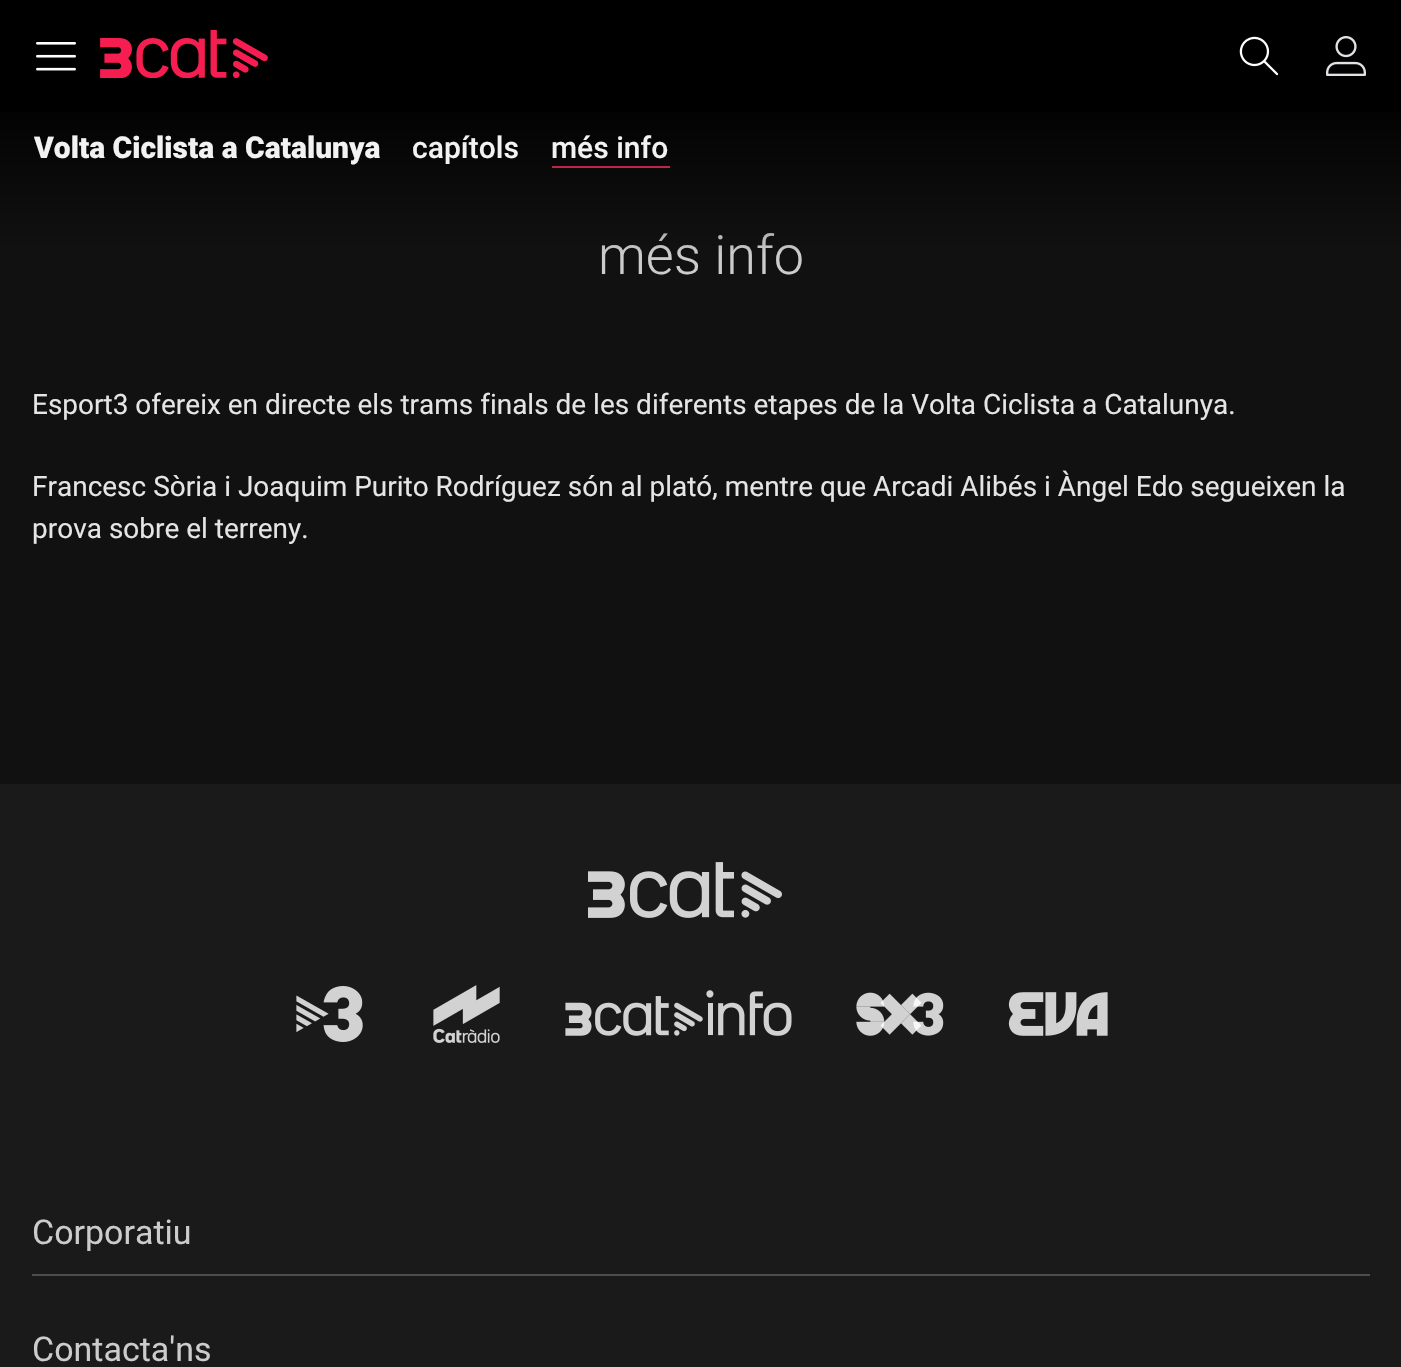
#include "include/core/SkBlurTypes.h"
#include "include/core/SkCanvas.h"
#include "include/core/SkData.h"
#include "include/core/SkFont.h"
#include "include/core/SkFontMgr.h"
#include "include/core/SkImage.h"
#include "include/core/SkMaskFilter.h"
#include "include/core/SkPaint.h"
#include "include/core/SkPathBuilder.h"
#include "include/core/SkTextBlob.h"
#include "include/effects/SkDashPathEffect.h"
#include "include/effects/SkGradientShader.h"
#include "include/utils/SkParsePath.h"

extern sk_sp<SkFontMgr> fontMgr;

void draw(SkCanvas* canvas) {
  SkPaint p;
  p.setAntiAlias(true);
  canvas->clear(SkColorSetRGB(17, 17, 17));
  p.setColor(SK_ColorBLACK);
  canvas->drawRect(SkRect::MakeLTRB(0, 0, 1401, 112), p);
  canvas->drawImageRect(SkImages::DeferredFromEncodedData(SkData::MakeFromFileName("images/1.png")), SkRect::MakeLTRB(36, 42, 76, 71), SkSamplingOptions());
  canvas->drawImageRect(SkImages::DeferredFromEncodedData(SkData::MakeFromFileName("images/2.png")), SkRect::MakeLTRB(100, 30, 268, 78), SkSamplingOptions());
  canvas->drawImageRect(SkImages::DeferredFromEncodedData(SkData::MakeFromFileName("images/3.png")), SkRect::MakeLTRB(1239, 36, 1279, 76), SkSamplingOptions());
  canvas->drawImageRect(SkImages::DeferredFromEncodedData(SkData::MakeFromFileName("images/4.png")), SkRect::MakeLTRB(1326, 36, 1366, 76), SkSamplingOptions());
  p.setColor(SkColorSetRGB(26, 26, 26));
  canvas->drawRect(SkRect::MakeLTRB(0, 784, 1401, 1367), p);
  canvas->drawImageRect(SkImages::DeferredFromEncodedData(SkData::MakeFromFileName("images/5.png")), SkRect::MakeLTRB(588, 862, 782, 918), SkSamplingOptions());
  canvas->drawImageRect(SkImages::DeferredFromEncodedData(SkData::MakeFromFileName("images/6.png")), SkRect::MakeLTRB(296, 986, 363, 1042), SkSamplingOptions());
  canvas->drawImageRect(SkImages::DeferredFromEncodedData(SkData::MakeFromFileName("images/7.png")), SkRect::MakeLTRB(433, 985, 500, 1043), SkSamplingOptions());
  canvas->drawImageRect(SkImages::DeferredFromEncodedData(SkData::MakeFromFileName("images/8.png")), SkRect::MakeLTRB(565, 990, 792, 1036), SkSamplingOptions());
  canvas->drawImageRect(SkImages::DeferredFromEncodedData(SkData::MakeFromFileName("images/9.png")), SkRect::MakeLTRB(856, 992, 944, 1036), SkSamplingOptions());
  canvas->drawImageRect(SkImages::DeferredFromEncodedData(SkData::MakeFromFileName("images/10.png")), SkRect::MakeLTRB(1008, 992, 1108, 1036), SkSamplingOptions());
  p.setColor(SkColorSetRGB(77, 77, 77));
  canvas->drawRect(SkRect::MakeLTRB(32, 1274, 1370, 1276), p);
  SkFont font1(fontMgr->matchFamilyStyle("Roboto", SkFontStyle(300, SkFontStyle::kNormal_Width, SkFontStyle::kUpright_Slant)), 54);
  font1.setSubpixel(true);
  p.setColor(SkColorSetRGB(204, 204, 204));
  canvas->drawString("més info", 598, 274, font1, p);
  {
    const SkColor colors[] = {SkColorSetARGB(230, 0, 0, 0), SkColorSetARGB(77, 0, 0, 0), SkColorSetARGB(0, 0, 0, 0)};
    const float stops[] = {0, 0.63f, 1};
    const SkPoint ends[] = {{700, 108}, {700, 256}};
    p.setShader(SkGradientShader::MakeLinear(ends, colors, stops, 3, SkTileMode::kClamp));
    p.setAlpha(255);
  }
  canvas->drawRect(SkRect::MakeLTRB(0, 112, 1401, 252), p);
  SkFont font2(fontMgr->matchFamilyStyle("Roboto", SkFontStyle(500, SkFontStyle::kNormal_Width, SkFontStyle::kUpright_Slant)), 30);
  font2.setSubpixel(true);
  p.setShader(nullptr);
  p.setColor(SkColorSetRGB(242, 242, 242));
  canvas->drawString("més info", 551, 158, font2, p);
  p.setColor(SkColorSetRGB(190, 38, 73));
  canvas->drawRect(SkRect::MakeLTRB(552, 166, 670, 168), p);
  p.setColor(SkColorSetRGB(242, 242, 242));
  canvas->drawString("capítols", 412, 158, font2, p);
  SkFont font3(fontMgr->matchFamilyStyle("Roboto", SkFontStyle(900, SkFontStyle::kNormal_Width, SkFontStyle::kUpright_Slant)), 30);
  font3.setSubpixel(true);
  canvas->drawString("Volta Ciclista a Catalunya", 34, 158, font3, p);
  SkFont font4(fontMgr->matchFamilyStyle("Roboto", SkFontStyle::Normal()), 28);
  font4.setSubpixel(true);
  p.setColor(SkColorSetRGB(229, 229, 229));
  canvas->drawString("Esport3 ofereix en directe els trams finals de les diferents etapes de la Volta Ciclista a Catalunya.", 32, 414, font4, p);
  canvas->drawString("Francesc Sòria i Joaquim Purito Rodríguez són al plató, mentre que Arcadi Alibés i Àngel Edo segueixen la", 32, 496, font4, p);
  canvas->drawString("prova sobre el terreny.", 32, 538, font4, p);
  SkFont font5(fontMgr->matchFamilyStyle("Roboto", SkFontStyle::Normal()), 34);
  font5.setSubpixel(true);
  p.setColor(SkColorSetRGB(204, 204, 204));
  canvas->drawString("Corporatiu", 32, 1244, font5, p);
  canvas->drawString("Contacta'ns", 32, 1361, font5, p);
}
